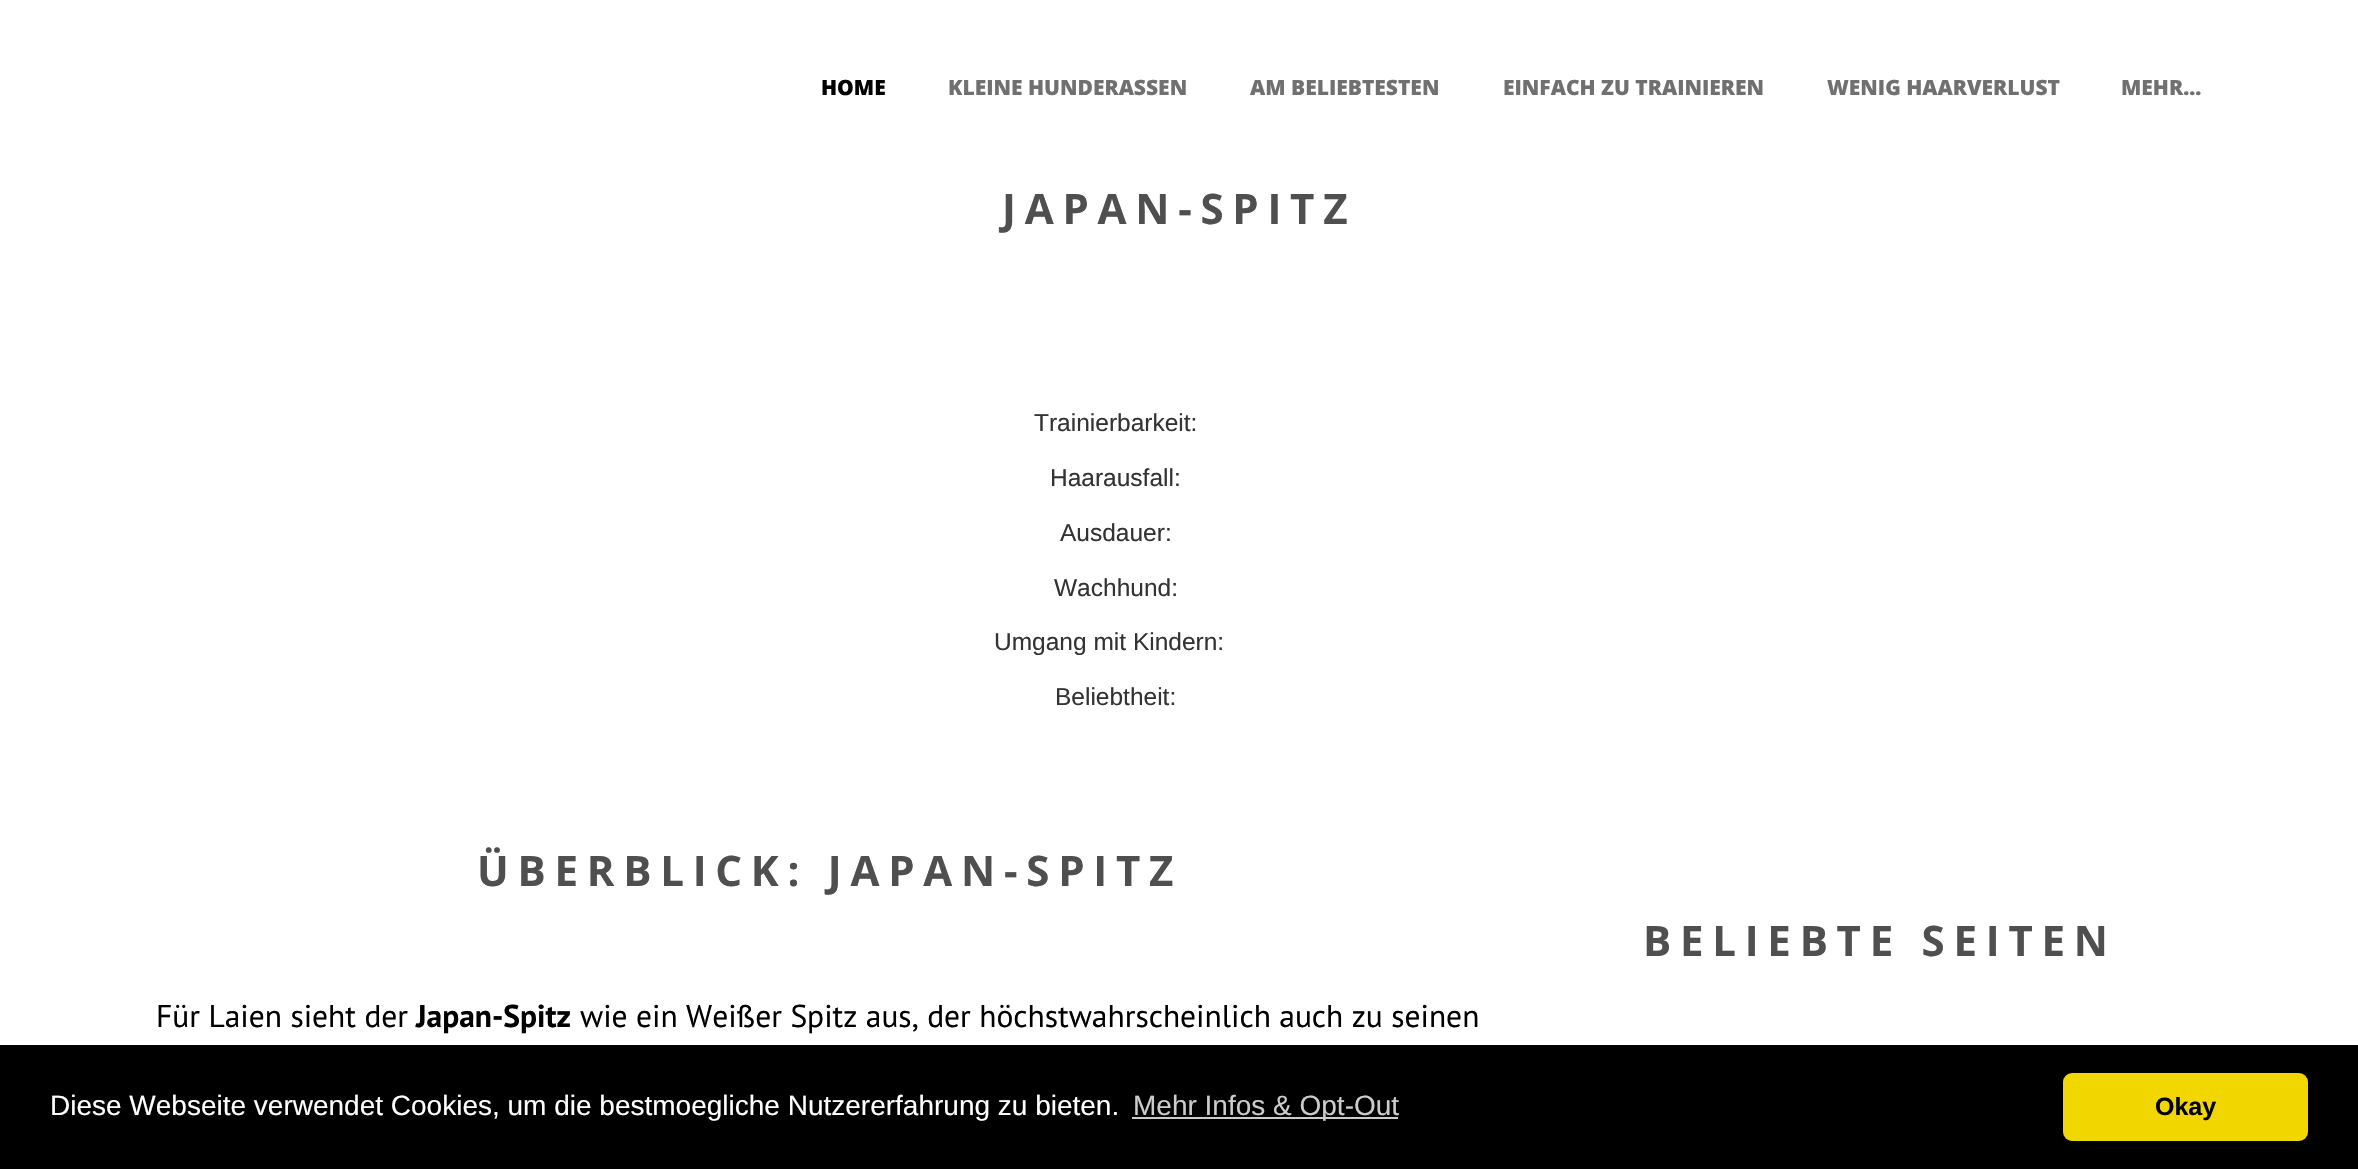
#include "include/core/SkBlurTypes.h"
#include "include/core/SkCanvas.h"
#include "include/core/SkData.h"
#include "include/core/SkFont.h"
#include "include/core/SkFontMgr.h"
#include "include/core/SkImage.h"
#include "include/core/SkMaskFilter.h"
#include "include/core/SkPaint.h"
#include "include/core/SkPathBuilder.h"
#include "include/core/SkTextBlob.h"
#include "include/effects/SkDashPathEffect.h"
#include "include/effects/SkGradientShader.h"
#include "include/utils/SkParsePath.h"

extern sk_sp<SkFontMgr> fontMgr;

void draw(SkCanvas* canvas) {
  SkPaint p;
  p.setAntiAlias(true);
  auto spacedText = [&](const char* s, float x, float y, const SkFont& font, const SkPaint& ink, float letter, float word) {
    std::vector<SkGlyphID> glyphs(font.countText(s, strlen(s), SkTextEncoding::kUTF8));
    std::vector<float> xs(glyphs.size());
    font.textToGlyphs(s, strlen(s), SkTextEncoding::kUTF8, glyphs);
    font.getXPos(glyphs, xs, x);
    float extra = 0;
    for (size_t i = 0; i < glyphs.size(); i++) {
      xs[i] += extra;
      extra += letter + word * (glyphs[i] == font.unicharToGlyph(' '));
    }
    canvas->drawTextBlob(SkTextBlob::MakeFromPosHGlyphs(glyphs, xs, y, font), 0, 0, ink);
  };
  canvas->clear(SK_ColorWHITE);
  p.setColor(SK_ColorBLACK);
  canvas->drawRect(SkRect::MakeLTRB(0, 1045, 2358, 1169), p);
  p.setColor(SkColorSetRGB(204, 204, 204));
  canvas->drawRect(SkRect::MakeLTRB(1132, 1117, 1398, 1119), p);
  p.setColor(SkColorSetRGB(241, 214, 0));
  canvas->drawRoundRect(SkRect::MakeLTRB(2063, 1073, 2308, 1141), 9, 9, p);
  SkFont font1(fontMgr->matchFamilyStyle("Open Sans", SkFontStyle(800, SkFontStyle::kNormal_Width, SkFontStyle::kUpright_Slant)), 21);
  font1.setSubpixel(true);
  p.setColor(SK_ColorBLACK);
  canvas->drawString("HOME", 821, 95, font1, p);
  p.setColor(SkColorSetRGB(112, 112, 112));
  canvas->drawString("KLEINE HUNDERASSEN", 948, 95, font1, p);
  canvas->drawString("AM BELIEBTESTEN", 1250, 95, font1, p);
  canvas->drawString("EINFACH ZU TRAINIEREN", 1503, 95, font1, p);
  canvas->drawString("WENIG HAARVERLUST", 1827, 95, font1, p);
  canvas->drawString("MEHR...", 2121, 95, font1, p);
  SkFont font2(fontMgr->matchFamilyStyle("Open Sans", SkFontStyle::Bold()), 42);
  font2.setSubpixel(true);
  p.setColor(SkColorSetRGB(79, 79, 79));
  spacedText("JAPAN-SPITZ", 1002, 224, font2, p, 8.75f, 0);
  SkFont font3(fontMgr->matchFamilyStyle("Liberation Sans", SkFontStyle::Normal()), 24.5f);
  font3.setSubpixel(true);
  p.setColor(SkColorSetRGB(51, 51, 51));
  canvas->drawString("Trainierbarkeit:", 1034, 431, font3, p);
  canvas->drawString("Haarausfall:", 1050, 486, font3, p);
  canvas->drawString("Ausdauer:", 1060, 541, font3, p);
  canvas->drawString("Wachhund:", 1054, 596, font3, p);
  canvas->drawString("Umgang mit Kindern:", 994, 650, font3, p);
  canvas->drawString("Beliebtheit:", 1055, 705, font3, p);
  p.setColor(SkColorSetRGB(79, 79, 79));
  spacedText("ÜBERBLICK: JAPAN-SPITZ", 477, 886, font2, p, 8.75f, 0);
  SkFont font4(fontMgr->matchFamilyStyle("PT Sans", SkFontStyle::Normal()), 31.5f);
  font4.setSubpixel(true);
  p.setColor(SK_ColorBLACK);
  canvas->drawString("Für Laien sieht der", 156, 1027, font4, p);
  SkFont font5(fontMgr->matchFamilyStyle("PT Sans", SkFontStyle::Bold()), 31.5f);
  font5.setSubpixel(true);
  canvas->drawString("Japan-Spitz", 416, 1027, font5, p);
  canvas->drawString("wie ein Weißer Spitz aus, der höchstwahrscheinlich auch zu seinen", 580, 1027, font4, p);
  p.setColor(SkColorSetRGB(79, 79, 79));
  spacedText("BELIEBTE SEITEN", 1643, 956, font2, p, 8.75f, 0);
  SkFont font6(fontMgr->matchFamilyStyle("Liberation Sans", SkFontStyle::Normal()), 28);
  font6.setSubpixel(true);
  p.setColor(SK_ColorWHITE);
  canvas->drawString("Diese Webseite verwendet Cookies, um die bestmoegliche Nutzererfahrung zu bieten.", 50, 1115, font6, p);
  p.setColor(SkColorSetRGB(204, 204, 204));
  canvas->drawString("Mehr Infos & Opt-Out", 1133, 1115, font6, p);
  SkFont font7(fontMgr->matchFamilyStyle("Liberation Sans", SkFontStyle::Bold()), 25);
  font7.setSubpixel(true);
  p.setColor(SK_ColorBLACK);
  canvas->drawString("Okay", 2155, 1115, font7, p);
}
